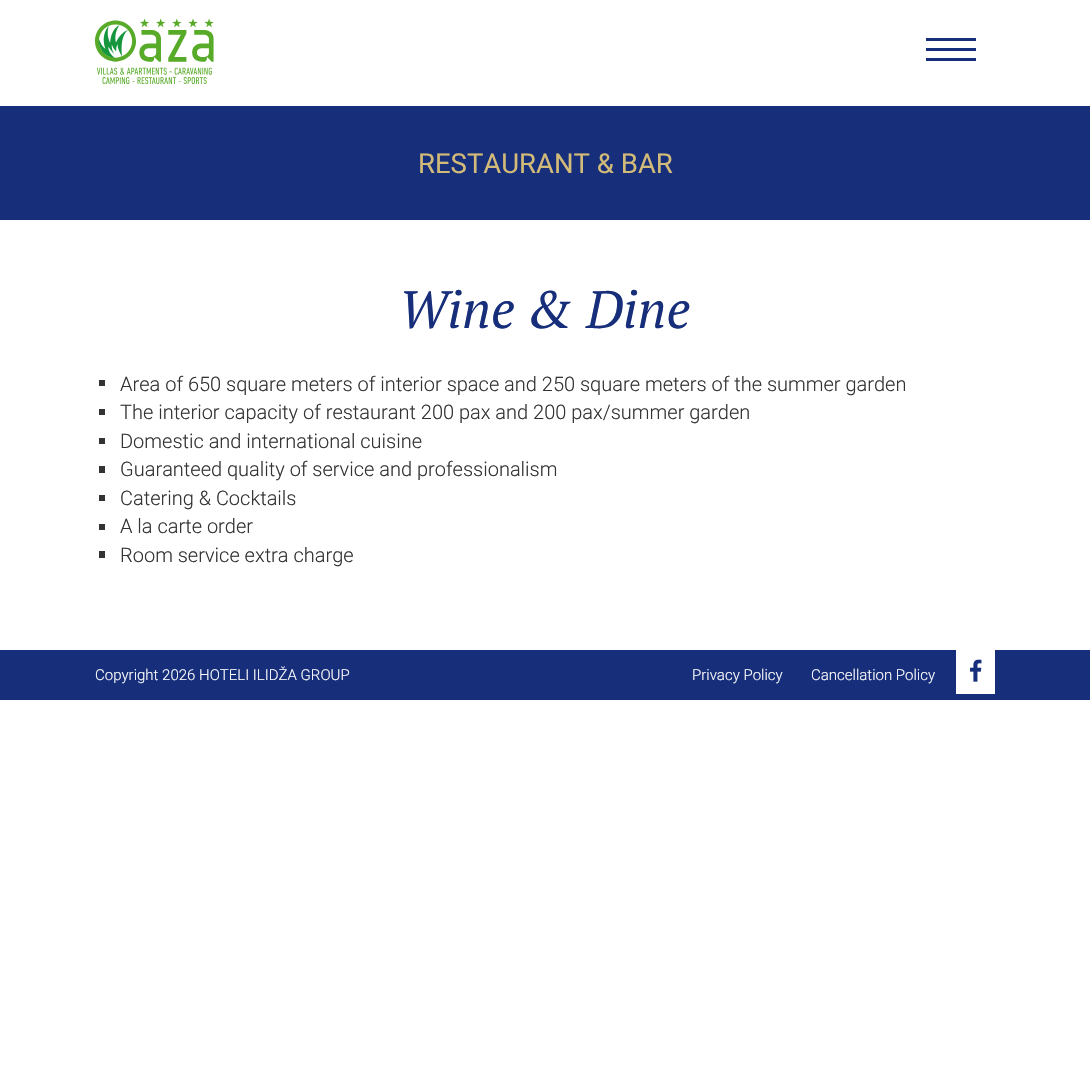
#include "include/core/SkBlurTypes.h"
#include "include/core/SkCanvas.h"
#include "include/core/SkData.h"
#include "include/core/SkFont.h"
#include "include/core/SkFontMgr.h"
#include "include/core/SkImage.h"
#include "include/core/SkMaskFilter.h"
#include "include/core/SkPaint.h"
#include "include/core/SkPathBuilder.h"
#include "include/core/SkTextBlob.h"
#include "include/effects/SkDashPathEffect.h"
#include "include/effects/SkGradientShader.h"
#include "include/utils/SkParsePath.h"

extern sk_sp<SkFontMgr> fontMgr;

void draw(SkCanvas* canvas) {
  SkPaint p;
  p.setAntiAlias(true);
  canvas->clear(SK_ColorWHITE);
  canvas->drawImageRect(SkImages::DeferredFromEncodedData(SkData::MakeFromFileName("images/1.png")), SkRect::MakeLTRB(95, 18, 214, 84), SkSamplingOptions());
  p.setColor(SkColorSetRGB(23, 46, 122));
  canvas->drawRect(SkRect::MakeLTRB(926, 38, 976, 41), p);
  canvas->drawRect(SkRect::MakeLTRB(926, 48, 976, 51), p);
  canvas->drawRect(SkRect::MakeLTRB(926, 58, 976, 61), p);
  canvas->drawRect(SkRect::MakeLTRB(0, 106, 1090, 220), p);
  p.setColor(SkColorSetRGB(51, 51, 51));
  canvas->drawRect(SkRect::MakeLTRB(99, 380, 105, 386), p);
  canvas->drawRect(SkRect::MakeLTRB(99, 409, 105, 415), p);
  canvas->drawRect(SkRect::MakeLTRB(99, 438, 105, 444), p);
  canvas->drawRect(SkRect::MakeLTRB(99, 466, 105, 473), p);
  canvas->drawRect(SkRect::MakeLTRB(99, 495, 105, 501), p);
  canvas->drawRect(SkRect::MakeLTRB(99, 524, 105, 530), p);
  canvas->drawRect(SkRect::MakeLTRB(99, 551, 105, 558), p);
  p.setColor(SkColorSetRGB(23, 46, 122));
  canvas->drawRect(SkRect::MakeLTRB(0, 650, 1090, 700), p);
  p.setColor(SK_ColorWHITE);
  canvas->drawRect(SkRect::MakeLTRB(956, 650, 995, 694), p);
  canvas->drawImageRect(SkImages::DeferredFromEncodedData(SkData::MakeFromFileName("images/2.png")), SkRect::MakeLTRB(970, 659, 982, 682), SkSamplingOptions());
  SkFont font1(fontMgr->matchFamilyStyle("Roboto", SkFontStyle::Normal()), 27.5f);
  font1.setSubpixel(true);
  p.setColor(SkColorSetRGB(210, 186, 121));
  canvas->drawString("RESTAURANT & BAR", 418, 173, font1, p);
  SkFont font2(fontMgr->matchFamilyStyle("PT Serif", SkFontStyle::Italic()), 52.5f);
  font2.setSubpixel(true);
  p.setColor(SkColorSetRGB(23, 46, 122));
  canvas->drawString("Wine & Dine", 399, 328, font2, p);
  SkFont font3(fontMgr->matchFamilyStyle("Roboto", SkFontStyle(300, SkFontStyle::kNormal_Width, SkFontStyle::kUpright_Slant)), 20);
  font3.setSubpixel(true);
  p.setColor(SkColorSetRGB(51, 51, 51));
  canvas->drawString("Area of 650 square meters of interior space and 250 square meters of the summer garden", 120, 391, font3, p);
  canvas->drawString("The interior capacity of restaurant 200 pax and 200 pax/summer garden", 120, 419, font3, p);
  canvas->drawString("Domestic and international cuisine", 120, 448, font3, p);
  canvas->drawString("Guaranteed quality of service and professionalism", 120, 476, font3, p);
  canvas->drawString("Catering & Cocktails", 120, 505, font3, p);
  canvas->drawString("A la carte order", 120, 533, font3, p);
  canvas->drawString("Room service extra charge", 120, 562, font3, p);
  SkFont font4(fontMgr->matchFamilyStyle("Roboto", SkFontStyle(300, SkFontStyle::kNormal_Width, SkFontStyle::kUpright_Slant)), 15);
  font4.setSubpixel(true);
  p.setColor(SK_ColorWHITE);
  canvas->drawString("Copyright 2026 HOTELI ILIDŽA GROUP", 95, 680, font4, p);
  canvas->drawString("Privacy Policy", 692, 680, font4, p);
  canvas->drawString("Cancellation Policy", 811, 680, font4, p);
}
